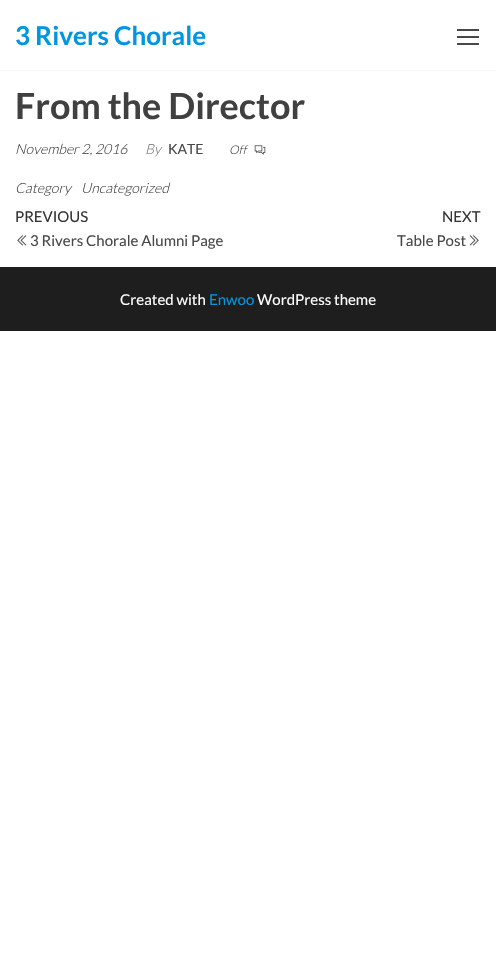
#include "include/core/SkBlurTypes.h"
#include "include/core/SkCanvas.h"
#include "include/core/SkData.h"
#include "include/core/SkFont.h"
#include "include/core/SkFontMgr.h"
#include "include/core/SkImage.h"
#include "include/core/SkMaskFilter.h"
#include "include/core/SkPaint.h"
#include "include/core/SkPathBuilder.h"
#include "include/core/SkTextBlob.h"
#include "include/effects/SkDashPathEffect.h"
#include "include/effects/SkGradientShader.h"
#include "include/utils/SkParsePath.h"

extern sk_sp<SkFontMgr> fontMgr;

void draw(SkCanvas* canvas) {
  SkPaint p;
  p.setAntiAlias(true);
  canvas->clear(SK_ColorWHITE);
  p.setColor(SkColorSetRGB(246, 246, 246));
  canvas->drawRect(SkRect::MakeLTRB(0, 70, 496, 71), p);
  p.setColor(SkColorSetRGB(72, 72, 72));
  canvas->drawRect(SkRect::MakeLTRB(457, 29, 479, 31), p);
  canvas->drawRect(SkRect::MakeLTRB(457, 36, 479, 38), p);
  canvas->drawRect(SkRect::MakeLTRB(457, 43, 479, 45), p);
  canvas->drawImageRect(SkImages::DeferredFromEncodedData(SkData::MakeFromFileName("images/1.png")), SkRect::MakeLTRB(254, 145, 266, 155), SkSamplingOptions());
  canvas->drawImageRect(SkImages::DeferredFromEncodedData(SkData::MakeFromFileName("images/2.png")), SkRect::MakeLTRB(17, 235, 27, 246), SkSamplingOptions());
  canvas->drawImageRect(SkImages::DeferredFromEncodedData(SkData::MakeFromFileName("images/3.png")), SkRect::MakeLTRB(469, 235, 479, 246), SkSamplingOptions());
  p.setColor(SkColorSetRGB(30, 30, 30));
  canvas->drawRect(SkRect::MakeLTRB(0, 267, 496, 331), p);
  SkFont font1(fontMgr->matchFamilyStyle("Lato", SkFontStyle::Bold()), 26);
  font1.setSubpixel(true);
  p.setColor(SkColorSetRGB(3, 150, 224));
  canvas->drawString("3 Rivers Chorale", 15, 45, font1, p);
  SkFont font2(fontMgr->matchFamilyStyle("Lato", SkFontStyle::Bold()), 36);
  font2.setSubpixel(true);
  p.setColor(SkColorSetRGB(64, 64, 64));
  canvas->drawString("From the Director", 15, 119, font2, p);
  SkFont font3(fontMgr->matchFamilyStyle("Lato", SkFontStyle(300, SkFontStyle::kNormal_Width, SkFontStyle::kItalic_Slant)), 14);
  font3.setSubpixel(true);
  canvas->drawString("November 2, 2016", 15, 154, font3, p);
  p.setColor(SkColorSetRGB(121, 121, 121));
  canvas->drawString("By", 145, 154, font3, p);
  SkFont font4(fontMgr->matchFamilyStyle("Lato", SkFontStyle::Normal()), 14);
  font4.setSubpixel(true);
  p.setColor(SkColorSetRGB(72, 72, 72));
  canvas->drawString("KATE", 168, 154, font4, p);
  SkFont font5(fontMgr->matchFamilyStyle("Lato", SkFontStyle(300, SkFontStyle::kNormal_Width, SkFontStyle::kItalic_Slant)), 12);
  font5.setSubpixel(true);
  p.setColor(SkColorSetRGB(64, 64, 64));
  canvas->drawString("Off", 229, 154, font5, p);
  canvas->drawString("Category", 15, 193, font3, p);
  canvas->drawString("Uncategorized", 81, 193, font3, p);
  SkFont font6(fontMgr->matchFamilyStyle("Lato", SkFontStyle::Normal()), 15);
  font6.setSubpixel(true);
  p.setColor(SkColorSetRGB(51, 51, 51));
  canvas->drawString("PREVIOUS", 15, 222, font6, p);
  p.setColor(SkColorSetRGB(72, 72, 72));
  canvas->drawString("3 Rivers Chorale Alumni Page", 30, 246, font6, p);
  p.setColor(SkColorSetRGB(51, 51, 51));
  canvas->drawString("NEXT", 442, 222, font6, p);
  p.setColor(SkColorSetRGB(72, 72, 72));
  canvas->drawString("Table Post", 397, 246, font6, p);
  p.setColor(SK_ColorWHITE);
  canvas->drawString("Created with", 120, 305, font6, p);
  p.setColor(SkColorSetRGB(3, 150, 224));
  canvas->drawString("Enwoo", 209, 305, font6, p);
  p.setColor(SK_ColorWHITE);
  canvas->drawString("WordPress theme", 257, 305, font6, p);
}
